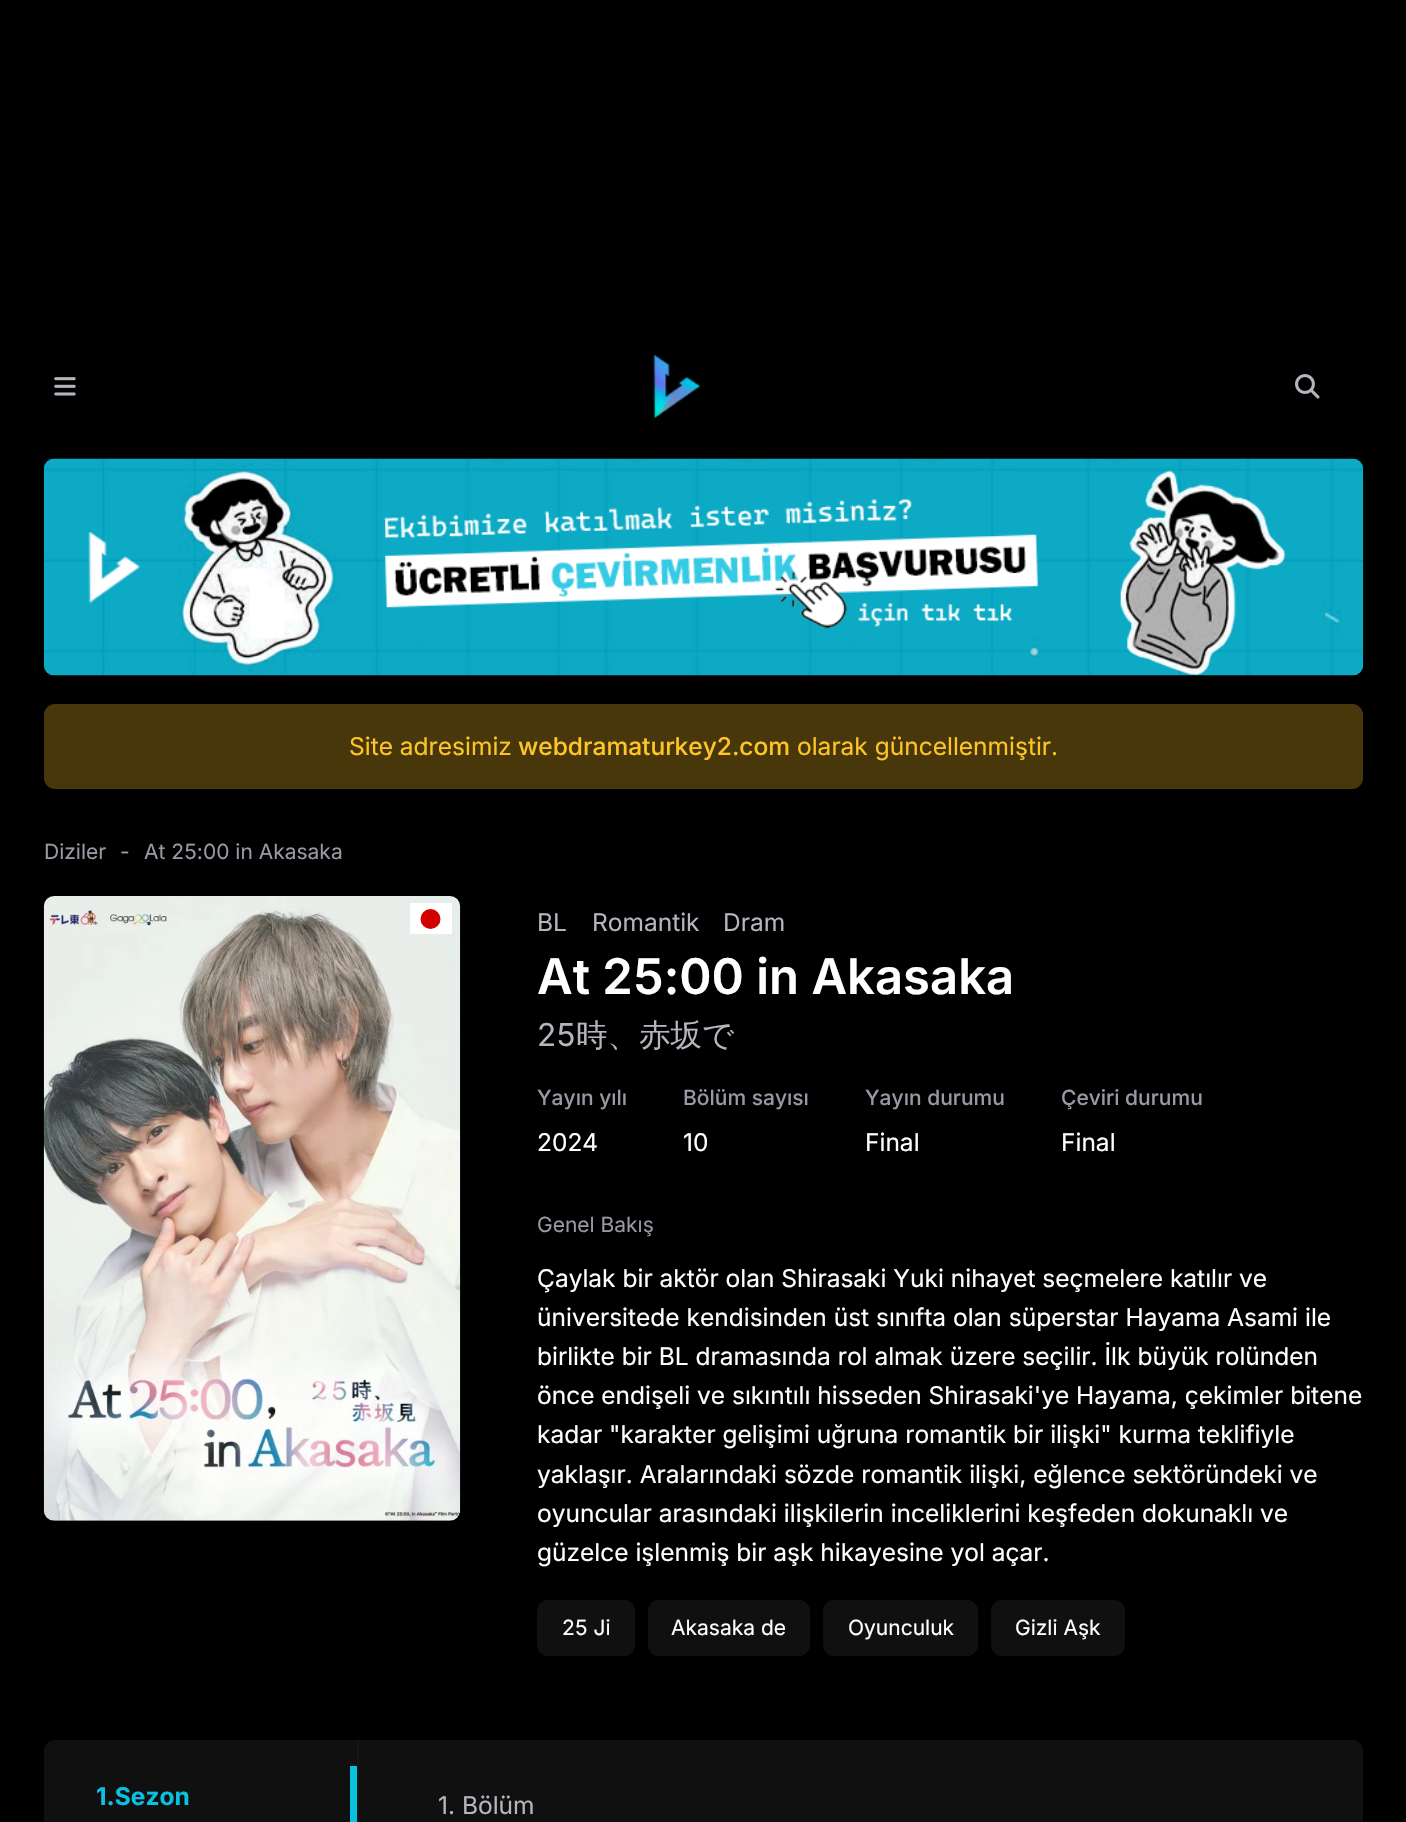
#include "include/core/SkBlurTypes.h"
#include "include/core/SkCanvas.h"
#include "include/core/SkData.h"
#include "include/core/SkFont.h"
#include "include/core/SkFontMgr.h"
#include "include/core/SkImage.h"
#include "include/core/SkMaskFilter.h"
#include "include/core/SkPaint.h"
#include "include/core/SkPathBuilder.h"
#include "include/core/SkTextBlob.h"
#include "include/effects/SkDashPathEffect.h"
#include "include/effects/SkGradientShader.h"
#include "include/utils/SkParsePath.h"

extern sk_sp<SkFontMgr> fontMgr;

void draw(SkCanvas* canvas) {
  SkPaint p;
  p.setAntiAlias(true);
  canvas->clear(SK_ColorBLACK);
  canvas->drawImageRect(SkImages::DeferredFromEncodedData(SkData::MakeFromFileName("images/1.png")), SkRect::MakeLTRB(54, 377, 76, 396), SkSamplingOptions());
  canvas->drawImageRect(SkImages::DeferredFromEncodedData(SkData::MakeFromFileName("images/2.png")), SkRect::MakeLTRB(653, 355, 700, 419), SkSamplingOptions());
  canvas->drawImageRect(SkImages::DeferredFromEncodedData(SkData::MakeFromFileName("images/3.png")), SkRect::MakeLTRB(1295, 374, 1320, 399), SkSamplingOptions());
  canvas->drawImageRect(SkImages::DeferredFromEncodedData(SkData::MakeFromFileName("images/4.png")), SkRect::MakeLTRB(43, 458, 1364, 676), SkSamplingOptions());
  p.setColor(SkColorSetRGB(71, 55, 11));
  canvas->drawRoundRect(SkRect::MakeLTRB(44, 704, 1363, 789), 11, 11, p);
  p.setColor(SkColorSetRGB(16, 16, 16));
  canvas->drawRoundRect(SkRect::MakeLTRB(44, 896, 460, 1521), 11, 11, p);
  canvas->drawImageRect(SkImages::DeferredFromEncodedData(SkData::MakeFromFileName("images/5.png")), SkRect::MakeLTRB(43, 896, 461, 1521), SkSamplingOptions());
  p.setColor(SK_ColorWHITE);
  canvas->drawRect(SkRect::MakeLTRB(410, 903, 452, 934), p);
  p.setColor(SkColorSetRGB(211, 0, 0));
  canvas->drawCircle(430.5f, 919, 10, p);
  p.setColor(SkColorSetRGB(16, 16, 16));
  canvas->drawRoundRect(SkRect::MakeLTRB(537, 1600, 635, 1656), 11, 11, p);
  canvas->drawRoundRect(SkRect::MakeLTRB(648, 1600, 810, 1656), 11, 11, p);
  canvas->drawRoundRect(SkRect::MakeLTRB(823, 1600, 978, 1656), 11, 11, p);
  canvas->drawRoundRect(SkRect::MakeLTRB(991, 1600, 1125, 1656), 11, 11, p);
  canvas->drawRoundRect(SkRect::MakeLTRB(44, 1740, 1363, 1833), 11, 11, p);
  p.setColor(SkColorSetRGB(21, 21, 21));
  canvas->drawRect(SkRect::MakeLTRB(357, 1740, 359, 1822), p);
  p.setColor(SkColorSetRGB(9, 193, 225));
  canvas->drawRect(SkRect::MakeLTRB(350, 1766, 357, 1822), p);
  SkFont font1(fontMgr->matchFamilyStyle("Inter", SkFontStyle::Normal()), 24.5f);
  font1.setSubpixel(true);
  p.setColor(SkColorSetRGB(255, 197, 38));
  canvas->drawString("Site adresimiz", 349, 755, font1, p);
  SkFont font2(fontMgr->matchFamilyStyle("Inter", SkFontStyle(500, SkFontStyle::kNormal_Width, SkFontStyle::kUpright_Slant)), 24.5f);
  font2.setSubpixel(true);
  canvas->drawString("webdramaturkey2.com", 518, 755, font2, p);
  canvas->drawString("olarak güncellenmiştir.", 797, 755, font1, p);
  SkFont font3(fontMgr->matchFamilyStyle("Inter", SkFontStyle::Normal()), 21);
  font3.setSubpixel(true);
  p.setColor(SkColorSetRGB(153, 153, 165));
  canvas->drawString("Diziler", 44, 859, font3, p);
  canvas->drawString("-", 120, 859, font3, p);
  canvas->drawString("At 25:00 in Akasaka", 144, 859, font3, p);
  p.setColor(SkColorSetRGB(181, 181, 190));
  canvas->drawString("BL", 537, 931, font1, p);
  canvas->drawString("Romantik", 592, 931, font1, p);
  canvas->drawString("Dram", 723, 931, font1, p);
  SkFont font4(fontMgr->matchFamilyStyle("Inter", SkFontStyle(600, SkFontStyle::kNormal_Width, SkFontStyle::kUpright_Slant)), 49);
  font4.setSubpixel(true);
  p.setColor(SK_ColorWHITE);
  canvas->drawString("At 25:00 in Akasaka", 537, 994, font4, p);
  SkFont font5(fontMgr->matchFamilyStyle("Inter", SkFontStyle::Normal()), 31.5f);
  font5.setSubpixel(true);
  p.setColor(SkColorSetRGB(181, 181, 190));
  canvas->drawString("25", 537, 1046, font5, p);
  SkFont font6(fontMgr->matchFamilyStyle("WenQuanYi Zen Hei", SkFontStyle(500, SkFontStyle::kNormal_Width, SkFontStyle::kUpright_Slant)), 31.5f);
  font6.setSubpixel(true);
  canvas->drawString("時、赤坂で", 576, 1046, font6, p);
  SkFont font7(fontMgr->matchFamilyStyle("Inter", SkFontStyle(500, SkFontStyle::kNormal_Width, SkFontStyle::kUpright_Slant)), 21);
  font7.setSubpixel(true);
  p.setColor(SkColorSetRGB(153, 153, 165));
  canvas->drawString("Yayın yılı", 537, 1105, font7, p);
  p.setColor(SK_ColorWHITE);
  canvas->drawString("2024", 537, 1151, font1, p);
  p.setColor(SkColorSetRGB(153, 153, 165));
  canvas->drawString("Bölüm sayısı", 683, 1105, font7, p);
  p.setColor(SK_ColorWHITE);
  canvas->drawString("10", 683, 1151, font1, p);
  p.setColor(SkColorSetRGB(153, 153, 165));
  canvas->drawString("Yayın durumu", 865, 1105, font7, p);
  p.setColor(SK_ColorWHITE);
  canvas->drawString("Final", 865, 1151, font1, p);
  p.setColor(SkColorSetRGB(153, 153, 165));
  canvas->drawString("Çeviri durumu", 1061, 1105, font7, p);
  p.setColor(SK_ColorWHITE);
  canvas->drawString("Final", 1061, 1151, font1, p);
  p.setColor(SkColorSetRGB(153, 153, 165));
  canvas->drawString("Genel Bakış", 537, 1232, font3, p);
  p.setColor(SK_ColorWHITE);
  canvas->drawString("Çaylak bir aktör olan Shirasaki Yuki nihayet seçmelere katılır ve", 537, 1287, font1, p);
  canvas->drawString("üniversitede kendisinden üst sınıfta olan süperstar Hayama Asami ile", 537, 1326, font1, p);
  canvas->drawString("birlikte bir BL dramasında rol almak üzere seçilir. İlk büyük rolünden", 537, 1365, font1, p);
  canvas->drawString("önce endişeli ve sıkıntılı hisseden Shirasaki'ye Hayama, çekimler bitene", 537, 1404, font1, p);
  canvas->drawString("kadar \"karakter gelişimi uğruna romantik bir ilişki\" kurma teklifiyle", 537, 1443, font1, p);
  canvas->drawString("yaklaşır. Aralarındaki sözde romantik ilişki, eğlence sektöründeki ve", 537, 1483, font1, p);
  canvas->drawString("oyuncular arasındaki ilişkilerin inceliklerini keşfeden dokunaklı ve", 537, 1522, font1, p);
  canvas->drawString("güzelce işlenmiş bir aşk hikayesine yol açar.", 537, 1561, font1, p);
  canvas->drawString("25 Ji", 562, 1635, font3, p);
  canvas->drawString("Akasaka de", 671, 1635, font3, p);
  canvas->drawString("Oyunculuk", 848, 1635, font3, p);
  canvas->drawString("Gizli Aşk", 1015, 1635, font3, p);
  SkFont font8(fontMgr->matchFamilyStyle("Inter", SkFontStyle::Bold()), 24.5f);
  font8.setSubpixel(true);
  p.setColor(SkColorSetRGB(9, 193, 225));
  canvas->drawString("1.Sezon", 96, 1805, font8, p);
  p.setColor(SkColorSetRGB(181, 181, 190));
  canvas->drawString("1. Bölüm", 438, 1814, font1, p);
}
